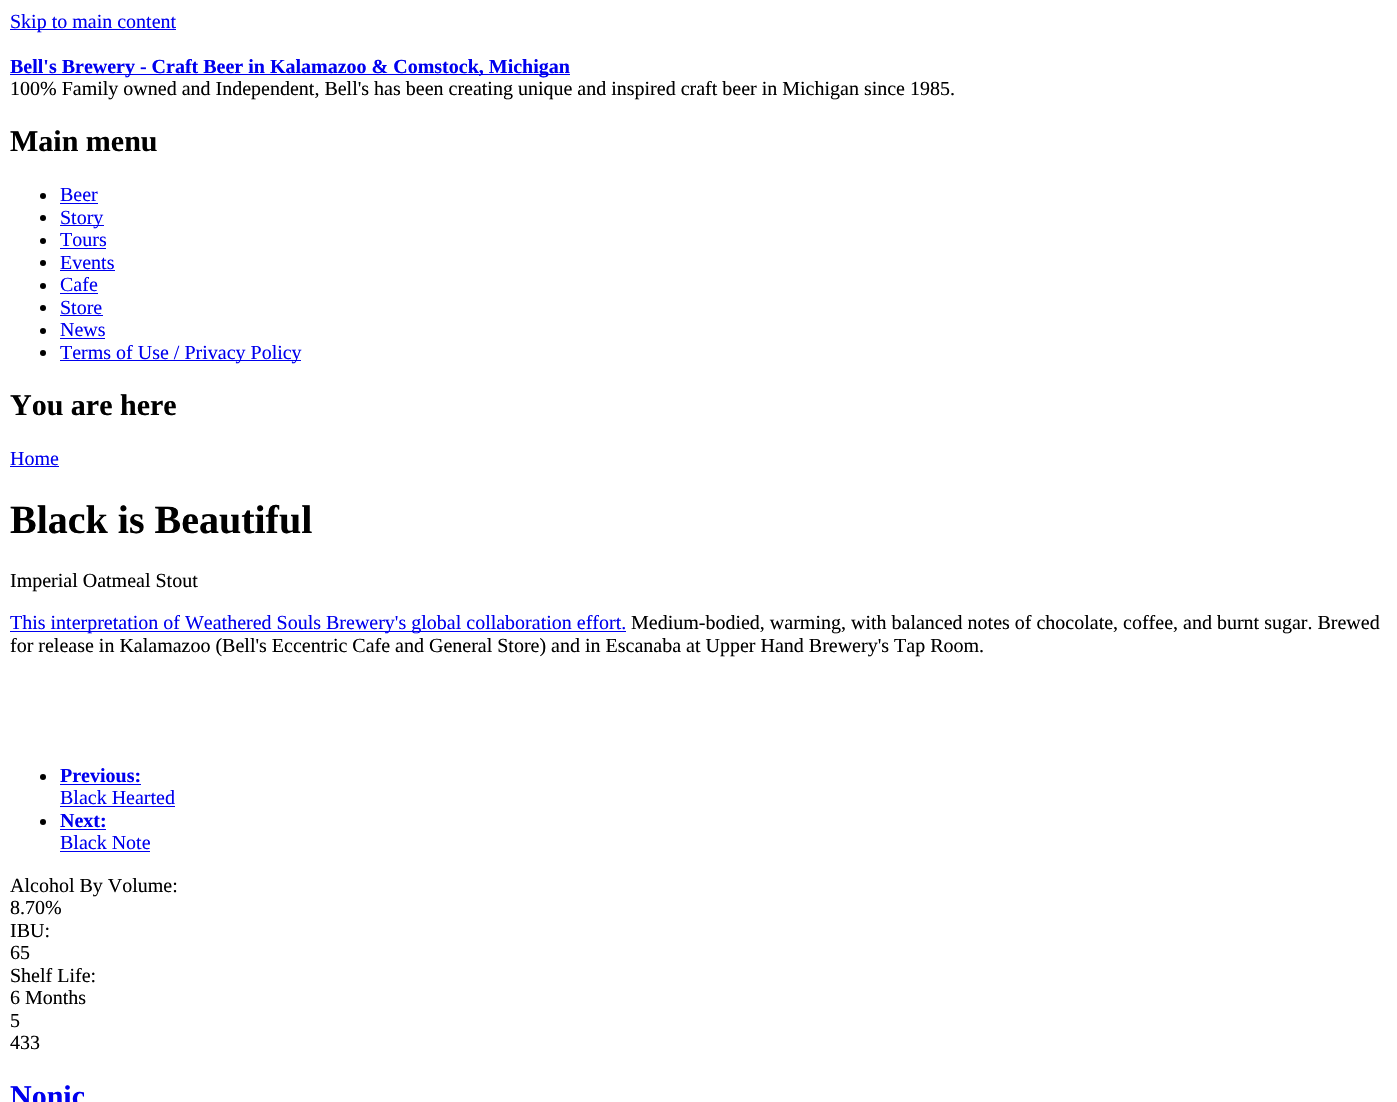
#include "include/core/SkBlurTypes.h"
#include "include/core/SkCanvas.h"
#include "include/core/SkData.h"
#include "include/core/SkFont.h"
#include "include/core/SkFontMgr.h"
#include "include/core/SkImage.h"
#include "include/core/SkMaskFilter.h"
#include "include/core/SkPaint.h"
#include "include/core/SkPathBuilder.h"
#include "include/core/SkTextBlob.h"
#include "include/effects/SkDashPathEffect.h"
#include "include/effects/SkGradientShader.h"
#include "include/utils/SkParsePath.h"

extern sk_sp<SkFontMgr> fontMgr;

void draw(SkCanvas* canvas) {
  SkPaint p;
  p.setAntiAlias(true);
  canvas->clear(SK_ColorWHITE);
  p.setColor(SkColorSetRGB(0, 0, 238));
  canvas->drawRect(SkRect::MakeLTRB(10, 29, 176, 30), p);
  canvas->drawRect(SkRect::MakeLTRB(10, 74, 570, 75), p);
  p.setColor(SK_ColorBLACK);
  canvas->drawCircle(43, 196, 3, p);
  p.setColor(SkColorSetRGB(0, 0, 238));
  canvas->drawRect(SkRect::MakeLTRB(60, 203, 98, 204), p);
  p.setColor(SK_ColorBLACK);
  canvas->drawCircle(43, 218, 3, p);
  p.setColor(SkColorSetRGB(0, 0, 238));
  canvas->drawRect(SkRect::MakeLTRB(60, 225, 104, 226), p);
  p.setColor(SK_ColorBLACK);
  canvas->drawCircle(43, 241, 3, p);
  p.setColor(SkColorSetRGB(0, 0, 238));
  canvas->drawRect(SkRect::MakeLTRB(60, 248, 106, 249), p);
  p.setColor(SK_ColorBLACK);
  canvas->drawCircle(43, 263, 3, p);
  p.setColor(SkColorSetRGB(0, 0, 238));
  canvas->drawRect(SkRect::MakeLTRB(60, 270, 115, 271), p);
  p.setColor(SK_ColorBLACK);
  canvas->drawCircle(43, 286, 3, p);
  p.setColor(SkColorSetRGB(0, 0, 238));
  canvas->drawRect(SkRect::MakeLTRB(60, 293, 98, 294), p);
  p.setColor(SK_ColorBLACK);
  canvas->drawCircle(43, 308, 3, p);
  p.setColor(SkColorSetRGB(0, 0, 238));
  canvas->drawRect(SkRect::MakeLTRB(60, 315, 103, 316), p);
  p.setColor(SK_ColorBLACK);
  canvas->drawCircle(43, 331, 3, p);
  p.setColor(SkColorSetRGB(0, 0, 238));
  canvas->drawRect(SkRect::MakeLTRB(60, 338, 105, 339), p);
  p.setColor(SK_ColorBLACK);
  canvas->drawCircle(43, 353, 3, p);
  p.setColor(SkColorSetRGB(0, 0, 238));
  canvas->drawRect(SkRect::MakeLTRB(60, 360, 301, 361), p);
  canvas->drawRect(SkRect::MakeLTRB(10, 466, 59, 467), p);
  canvas->drawRect(SkRect::MakeLTRB(10, 631, 626, 632), p);
  p.setColor(SK_ColorBLACK);
  canvas->drawCircle(43, 777, 3, p);
  p.setColor(SkColorSetRGB(0, 0, 238));
  canvas->drawRect(SkRect::MakeLTRB(60, 784, 141, 785), p);
  canvas->drawRect(SkRect::MakeLTRB(60, 806, 175, 807), p);
  p.setColor(SK_ColorBLACK);
  canvas->drawCircle(43, 822, 3, p);
  p.setColor(SkColorSetRGB(0, 0, 238));
  canvas->drawRect(SkRect::MakeLTRB(60, 829, 106, 830), p);
  canvas->drawRect(SkRect::MakeLTRB(60, 851, 150, 852), p);
  SkFont font1(fontMgr->matchFamilyStyle("Liberation Serif", SkFontStyle::Normal()), 20);
  font1.setSubpixel(true);
  canvas->drawString("Skip to main content", 10, 28, font1, p);
  SkFont font2(fontMgr->matchFamilyStyle("Liberation Serif", SkFontStyle::Bold()), 20);
  font2.setSubpixel(true);
  canvas->drawString("Bell's Brewery - Craft Beer in Kalamazoo & Comstock, Michigan", 10, 73, font2, p);
  p.setColor(SK_ColorBLACK);
  canvas->drawString("100% Family owned and Independent, Bell's has been creating unique and inspired craft beer in Michigan since 1985.", 10, 95, font1, p);
  SkFont font3(fontMgr->matchFamilyStyle("Liberation Serif", SkFontStyle::Bold()), 30);
  font3.setSubpixel(true);
  canvas->drawString("Main menu", 10, 151, font3, p);
  p.setColor(SkColorSetRGB(0, 0, 238));
  canvas->drawString("Beer", 60, 201, font1, p);
  canvas->drawString("Story", 60, 224, font1, p);
  canvas->drawString("Tours", 60, 246, font1, p);
  canvas->drawString("Events", 60, 269, font1, p);
  canvas->drawString("Cafe", 60, 291, font1, p);
  canvas->drawString("Store", 60, 314, font1, p);
  canvas->drawString("News", 60, 336, font1, p);
  canvas->drawString("Terms of Use / Privacy Policy", 60, 359, font1, p);
  p.setColor(SK_ColorBLACK);
  canvas->drawString("You are here", 10, 415, font3, p);
  p.setColor(SkColorSetRGB(0, 0, 238));
  canvas->drawString("Home", 10, 465, font1, p);
  SkFont font4(fontMgr->matchFamilyStyle("Liberation Serif", SkFontStyle::Bold()), 40);
  font4.setSubpixel(true);
  p.setColor(SK_ColorBLACK);
  canvas->drawString("Black is Beautiful", 10, 533, font4, p);
  canvas->drawString("Imperial Oatmeal Stout", 10, 587, font1, p);
  p.setColor(SkColorSetRGB(0, 0, 238));
  canvas->drawString("This interpretation of Weathered Souls Brewery's global collaboration effort.", 10, 629, font1, p);
  p.setColor(SK_ColorBLACK);
  canvas->drawString("Medium-bodied, warming, with balanced notes of chocolate, coffee, and burnt sugar. Brewed", 631, 629, font1, p);
  canvas->drawString("for release in Kalamazoo (Bell's Eccentric Cafe and General Store) and in Escanaba at Upper Hand Brewery's Tap Room.", 10, 652, font1, p);
  p.setColor(SkColorSetRGB(0, 0, 238));
  canvas->drawString("Previous:", 60, 782, font2, p);
  canvas->drawString("Black Hearted", 60, 804, font1, p);
  canvas->drawString("Next:", 60, 827, font2, p);
  canvas->drawString("Black Note", 60, 849, font1, p);
  p.setColor(SK_ColorBLACK);
  canvas->drawString("Alcohol By Volume:", 10, 892, font1, p);
  canvas->drawString("8.70%", 10, 914, font1, p);
  canvas->drawString("IBU:", 10, 937, font1, p);
  canvas->drawString("65", 10, 959, font1, p);
  canvas->drawString("Shelf Life:", 10, 982, font1, p);
  canvas->drawString("6 Months", 10, 1004, font1, p);
  canvas->drawString("5", 10, 1027, font1, p);
  canvas->drawString("433", 10, 1049, font1, p);
  p.setColor(SkColorSetRGB(0, 0, 238));
  canvas->drawString("Nonic", 10, 1106, font3, p);
}
